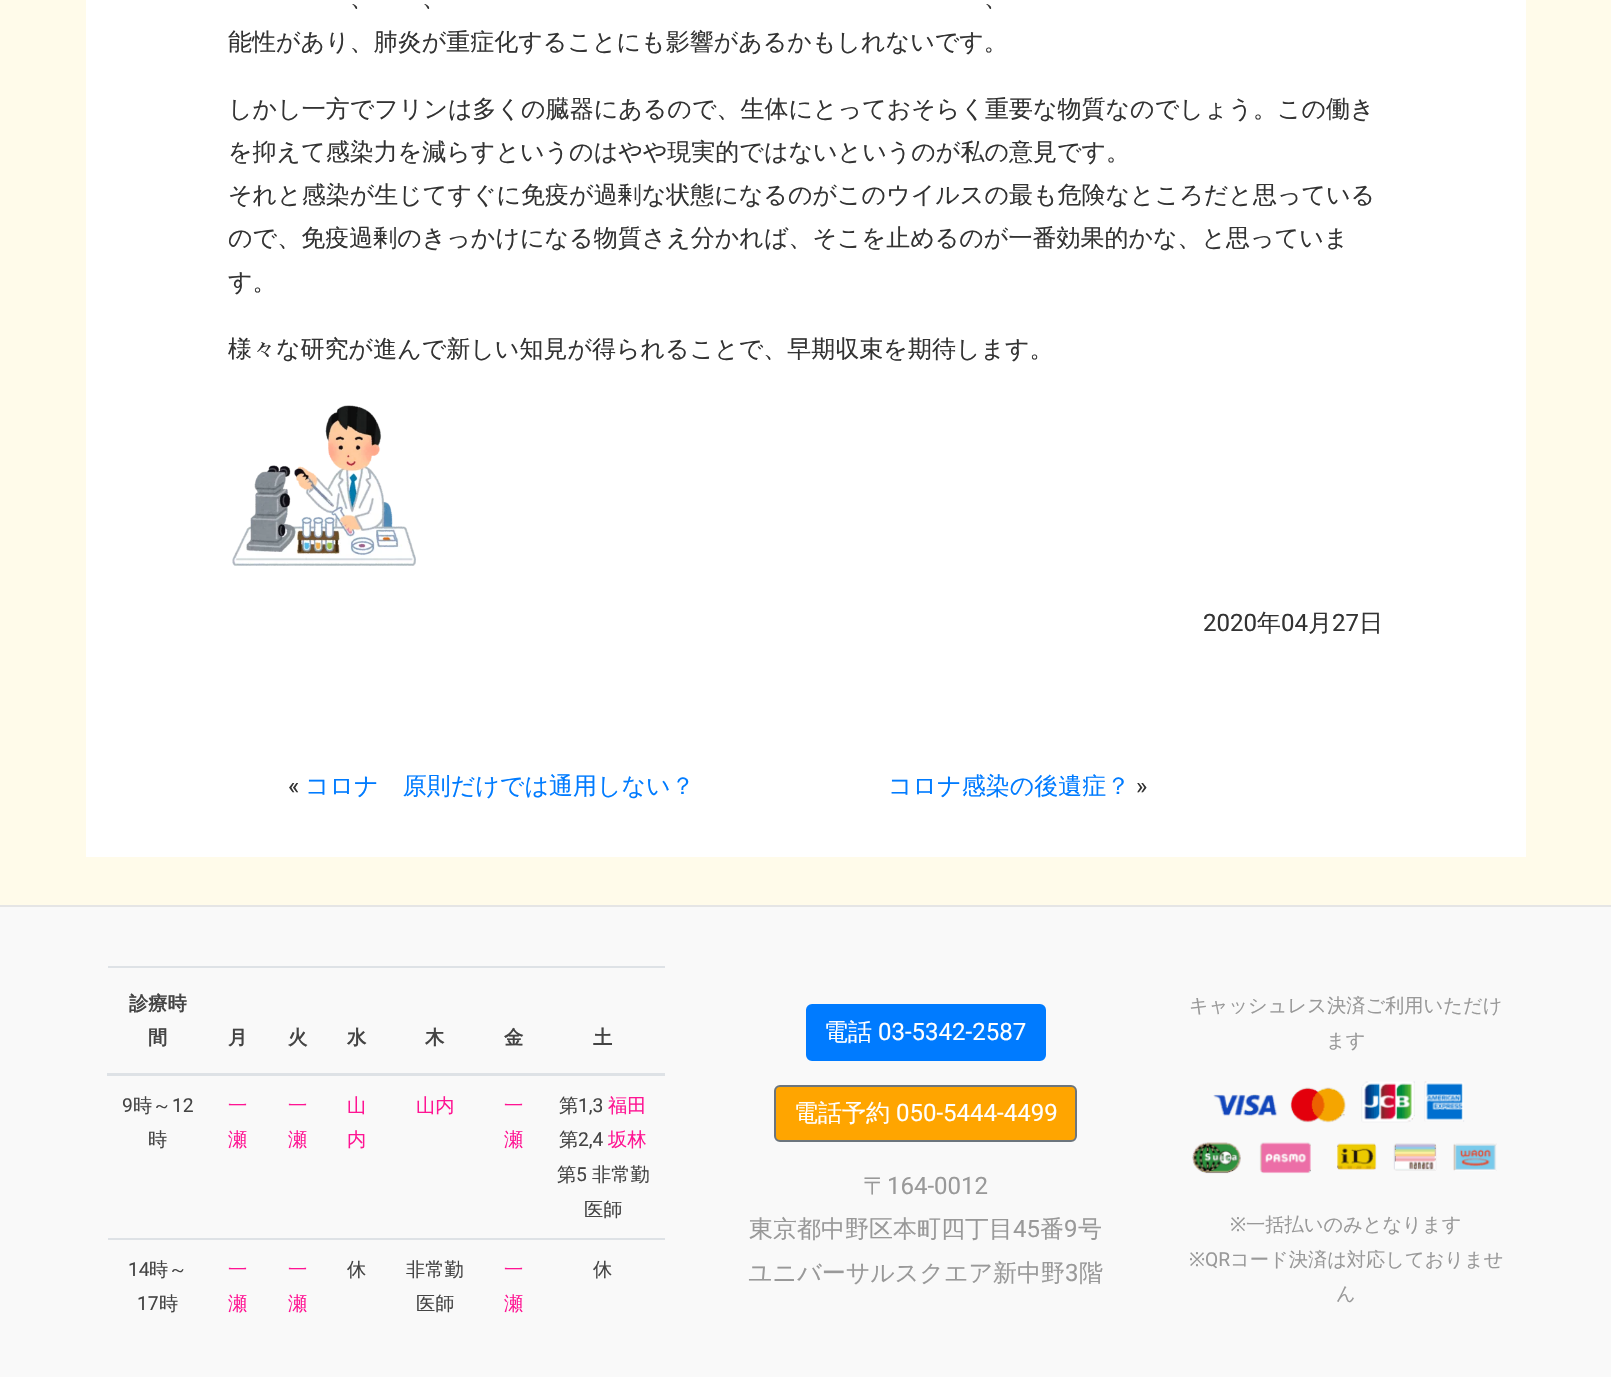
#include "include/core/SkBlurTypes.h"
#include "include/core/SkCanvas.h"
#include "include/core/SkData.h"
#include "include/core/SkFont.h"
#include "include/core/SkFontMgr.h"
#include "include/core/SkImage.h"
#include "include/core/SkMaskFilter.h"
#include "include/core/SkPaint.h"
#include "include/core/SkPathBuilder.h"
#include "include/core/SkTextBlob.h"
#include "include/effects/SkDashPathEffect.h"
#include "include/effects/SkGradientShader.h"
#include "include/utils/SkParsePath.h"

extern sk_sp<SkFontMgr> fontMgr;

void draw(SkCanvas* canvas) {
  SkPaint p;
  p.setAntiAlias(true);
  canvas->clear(SkColorSetRGB(255, 251, 234));
  p.setColor(SK_ColorWHITE);
  canvas->drawRect(SkRect::MakeLTRB(86, 0, 1526, 857), p);
  canvas->drawImageRect(SkImages::DeferredFromEncodedData(SkData::MakeFromFileName("images/1.png")), SkRect::MakeLTRB(232, 405, 416, 566), SkSamplingOptions());
  p.setColor(SkColorSetRGB(249, 249, 249));
  canvas->drawRect(SkRect::MakeLTRB(0, 907, 1611, 1377), p);
  p.setColor(SkColorSetRGB(229, 229, 229));
  canvas->drawRect(SkRect::MakeLTRB(0, 905, 1611, 907), p);
  p.setColor(SkColorSetRGB(222, 226, 230));
  canvas->drawRect(SkRect::MakeLTRB(108, 966, 665, 968), p);
  canvas->drawRect(SkRect::MakeLTRB(107, 1073, 665, 1076), p);
  canvas->drawRect(SkRect::MakeLTRB(108, 1238, 665, 1240), p);
  p.setColor(SkColorSetRGB(0, 123, 255));
  canvas->drawRoundRect(SkRect::MakeLTRB(807, 1005, 1045, 1060), 5, 5, p);
  p.setStyle(SkPaint::kStroke_Style);
  p.setStrokeWidth(2);
  canvas->drawRoundRect(SkRect::MakeLTRB(807, 1005, 1045, 1060), 5, 5, p);
  p.setStyle(SkPaint::kFill_Style);
  p.setColor(SkColorSetRGB(255, 165, 0));
  canvas->drawRoundRect(SkRect::MakeLTRB(775, 1086, 1076, 1141), 5, 5, p);
  p.setStyle(SkPaint::kStroke_Style);
  p.setColor(SkColorSetRGB(108, 117, 125));
  canvas->drawRoundRect(SkRect::MakeLTRB(775, 1086, 1076, 1141), 5, 5, p);
  canvas->drawImageRect(SkImages::DeferredFromEncodedData(SkData::MakeFromFileName("images/2.png")), SkRect::MakeLTRB(1192, 1081, 1497, 1174), SkSamplingOptions());
  SkFont font1(fontMgr->matchFamilyStyle("WenQuanYi Zen Hei", SkFontStyle(500, SkFontStyle::kNormal_Width, SkFontStyle::kUpright_Slant)), 24);
  font1.setSubpixel(true);
  p.setStyle(SkPaint::kFill_Style);
  p.setColor(SkColorSetRGB(51, 51, 51));
  canvas->drawString("、", 350, 6, font1, p);
  canvas->drawString("、", 422, 6, font1, p);
  canvas->drawString("、", 984, 6, font1, p);
  canvas->drawString("能性があり、肺炎が重症化することにも影響があるかもしれないです。", 228, 50, font1, p);
  canvas->drawString("しかし一方でフリンは多くの臓器にあるので、生体にとっておそらく重要な物質なのでしょう。この働き", 228, 117, font1, p);
  canvas->drawString("を抑えて感染力を減らすというのはやや現実的ではないというのが私の意見です。", 228, 160, font1, p);
  canvas->drawString("それと感染が生じてすぐに免疫が過剰な状態になるのがこのウイルスの最も危険なところだと思っている", 228, 203, font1, p);
  canvas->drawString("ので、免疫過剰のきっかけになる物質さえ分かれば、そこを止めるのが一番効果的かな、と思っていま", 228, 246, font1, p);
  canvas->drawString("す。", 228, 290, font1, p);
  canvas->drawString("様々な研究が進んで新しい知見が得られることで、早期収束を期待します。", 228, 357, font1, p);
  SkFont font2(fontMgr->matchFamilyStyle("Roboto", SkFontStyle::Normal()), 24);
  font2.setSubpixel(true);
  canvas->drawString("2020", 1203, 631, font2, p);
  canvas->drawString("年", 1257, 631, font1, p);
  canvas->drawString("04", 1281, 631, font2, p);
  canvas->drawString("月", 1308, 631, font1, p);
  canvas->drawString("27", 1332, 631, font2, p);
  canvas->drawString("日", 1359, 631, font1, p);
  canvas->drawString("«", 288, 794, font2, p);
  p.setColor(SkColorSetRGB(0, 123, 255));
  canvas->drawString("コロナ　原則だけでは通用しない？", 305, 794, font1, p);
  canvas->drawString("コロナ感染の後遺症？", 888, 794, font1, p);
  p.setColor(SkColorSetRGB(51, 51, 51));
  canvas->drawString("»", 1136, 794, font2, p);
  SkFont font3(fontMgr->matchFamilyStyle("WenQuanYi Zen Hei", SkFontStyle::Bold()), 19.25f);
  font3.setSubpixel(true);
  p.setColor(SkColorSetRGB(68, 68, 68));
  canvas->drawString("診療時", 129, 1010, font3, p);
  canvas->drawString("間", 148, 1044, font3, p);
  canvas->drawString("月", 228, 1044, font3, p);
  canvas->drawString("火", 288, 1044, font3, p);
  canvas->drawString("水", 347, 1044, font3, p);
  canvas->drawString("木", 425, 1044, font3, p);
  canvas->drawString("金", 504, 1044, font3, p);
  canvas->drawString("土", 593, 1044, font3, p);
  SkFont font4(fontMgr->matchFamilyStyle("Roboto", SkFontStyle::Normal()), 19.25f);
  font4.setSubpixel(true);
  canvas->drawString("9", 122, 1112, font4, p);
  SkFont font5(fontMgr->matchFamilyStyle("WenQuanYi Zen Hei", SkFontStyle(500, SkFontStyle::kNormal_Width, SkFontStyle::kUpright_Slant)), 19.25f);
  font5.setSubpixel(true);
  canvas->drawString("時～", 133, 1112, font5, p);
  canvas->drawString("12", 172, 1112, font4, p);
  canvas->drawString("時", 148, 1146, font5, p);
  p.setColor(SkColorSetRGB(255, 20, 147));
  canvas->drawString("一", 228, 1112, font5, p);
  canvas->drawString("瀬", 228, 1146, font5, p);
  canvas->drawString("一", 288, 1112, font5, p);
  canvas->drawString("瀬", 288, 1146, font5, p);
  canvas->drawString("山", 347, 1112, font5, p);
  canvas->drawString("内", 347, 1146, font5, p);
  canvas->drawString("山内", 416, 1112, font5, p);
  canvas->drawString("一", 504, 1112, font5, p);
  canvas->drawString("瀬", 504, 1146, font5, p);
  p.setColor(SkColorSetRGB(68, 68, 68));
  canvas->drawString("第", 559, 1112, font5, p);
  canvas->drawString("1,3", 578, 1112, font4, p);
  p.setColor(SkColorSetRGB(255, 20, 147));
  canvas->drawString("福田", 608, 1112, font5, p);
  p.setColor(SkColorSetRGB(68, 68, 68));
  canvas->drawString("第", 559, 1146, font5, p);
  canvas->drawString("2,4", 578, 1146, font4, p);
  p.setColor(SkColorSetRGB(255, 20, 147));
  canvas->drawString("坂林", 608, 1146, font5, p);
  p.setColor(SkColorSetRGB(68, 68, 68));
  canvas->drawString("第", 557, 1181, font5, p);
  canvas->drawString("5", 576, 1181, font4, p);
  canvas->drawString("非常勤", 592, 1181, font5, p);
  canvas->drawString("医師", 584, 1216, font5, p);
  canvas->drawString("14", 128, 1276, font4, p);
  canvas->drawString("時～", 149, 1276, font5, p);
  canvas->drawString("17", 137, 1310, font4, p);
  canvas->drawString("時", 159, 1310, font5, p);
  p.setColor(SkColorSetRGB(255, 20, 147));
  canvas->drawString("一", 228, 1276, font5, p);
  canvas->drawString("瀬", 228, 1310, font5, p);
  canvas->drawString("一", 288, 1276, font5, p);
  canvas->drawString("瀬", 288, 1310, font5, p);
  p.setColor(SkColorSetRGB(68, 68, 68));
  canvas->drawString("休", 347, 1276, font5, p);
  canvas->drawString("非常勤", 406, 1276, font5, p);
  canvas->drawString("医師", 416, 1310, font5, p);
  p.setColor(SkColorSetRGB(255, 20, 147));
  canvas->drawString("一", 504, 1276, font5, p);
  canvas->drawString("瀬", 504, 1310, font5, p);
  p.setColor(SkColorSetRGB(68, 68, 68));
  canvas->drawString("休", 593, 1276, font5, p);
  p.setColor(SK_ColorWHITE);
  canvas->drawString("電話", 824, 1040, font1, p);
  canvas->drawString("03-5342-2587", 878, 1040, font2, p);
  canvas->drawString("電話予約", 794, 1121, font1, p);
  canvas->drawString("050-5444-4499", 896, 1121, font2, p);
  p.setColor(SkColorSetRGB(153, 153, 153));
  canvas->drawString("〒", 863, 1194, font1, p);
  canvas->drawString("164-0012", 887, 1194, font2, p);
  canvas->drawString("東京都中野区本町四丁目", 749, 1237, font1, p);
  canvas->drawString("45", 1013, 1237, font2, p);
  canvas->drawString("番", 1040, 1237, font1, p);
  canvas->drawString("9", 1064, 1237, font2, p);
  canvas->drawString("号", 1078, 1237, font1, p);
  canvas->drawString("ユニバーサルスクエア新中野", 748, 1281, font1, p);
  canvas->drawString("3", 1065, 1281, font2, p);
  canvas->drawString("階", 1079, 1281, font1, p);
  canvas->drawString("キャッシュレス決済ご利用いただけ", 1189, 1012, font5, p);
  canvas->drawString("ます", 1326, 1047, font5, p);
  SkFont font6(fontMgr->matchFamilyStyle("Noto Sans", SkFontStyle::Normal()), 19.25f);
  font6.setSubpixel(true);
  canvas->drawString("※", 1230, 1231, font6, p);
  canvas->drawString("一括払いのみとなります", 1246, 1231, font5, p);
  canvas->drawString("※", 1189, 1266, font6, p);
  canvas->drawString("QR", 1205, 1266, font4, p);
  canvas->drawString("コード決済は対応しておりませ", 1230, 1266, font5, p);
  canvas->drawString("ん", 1336, 1300, font5, p);
}
